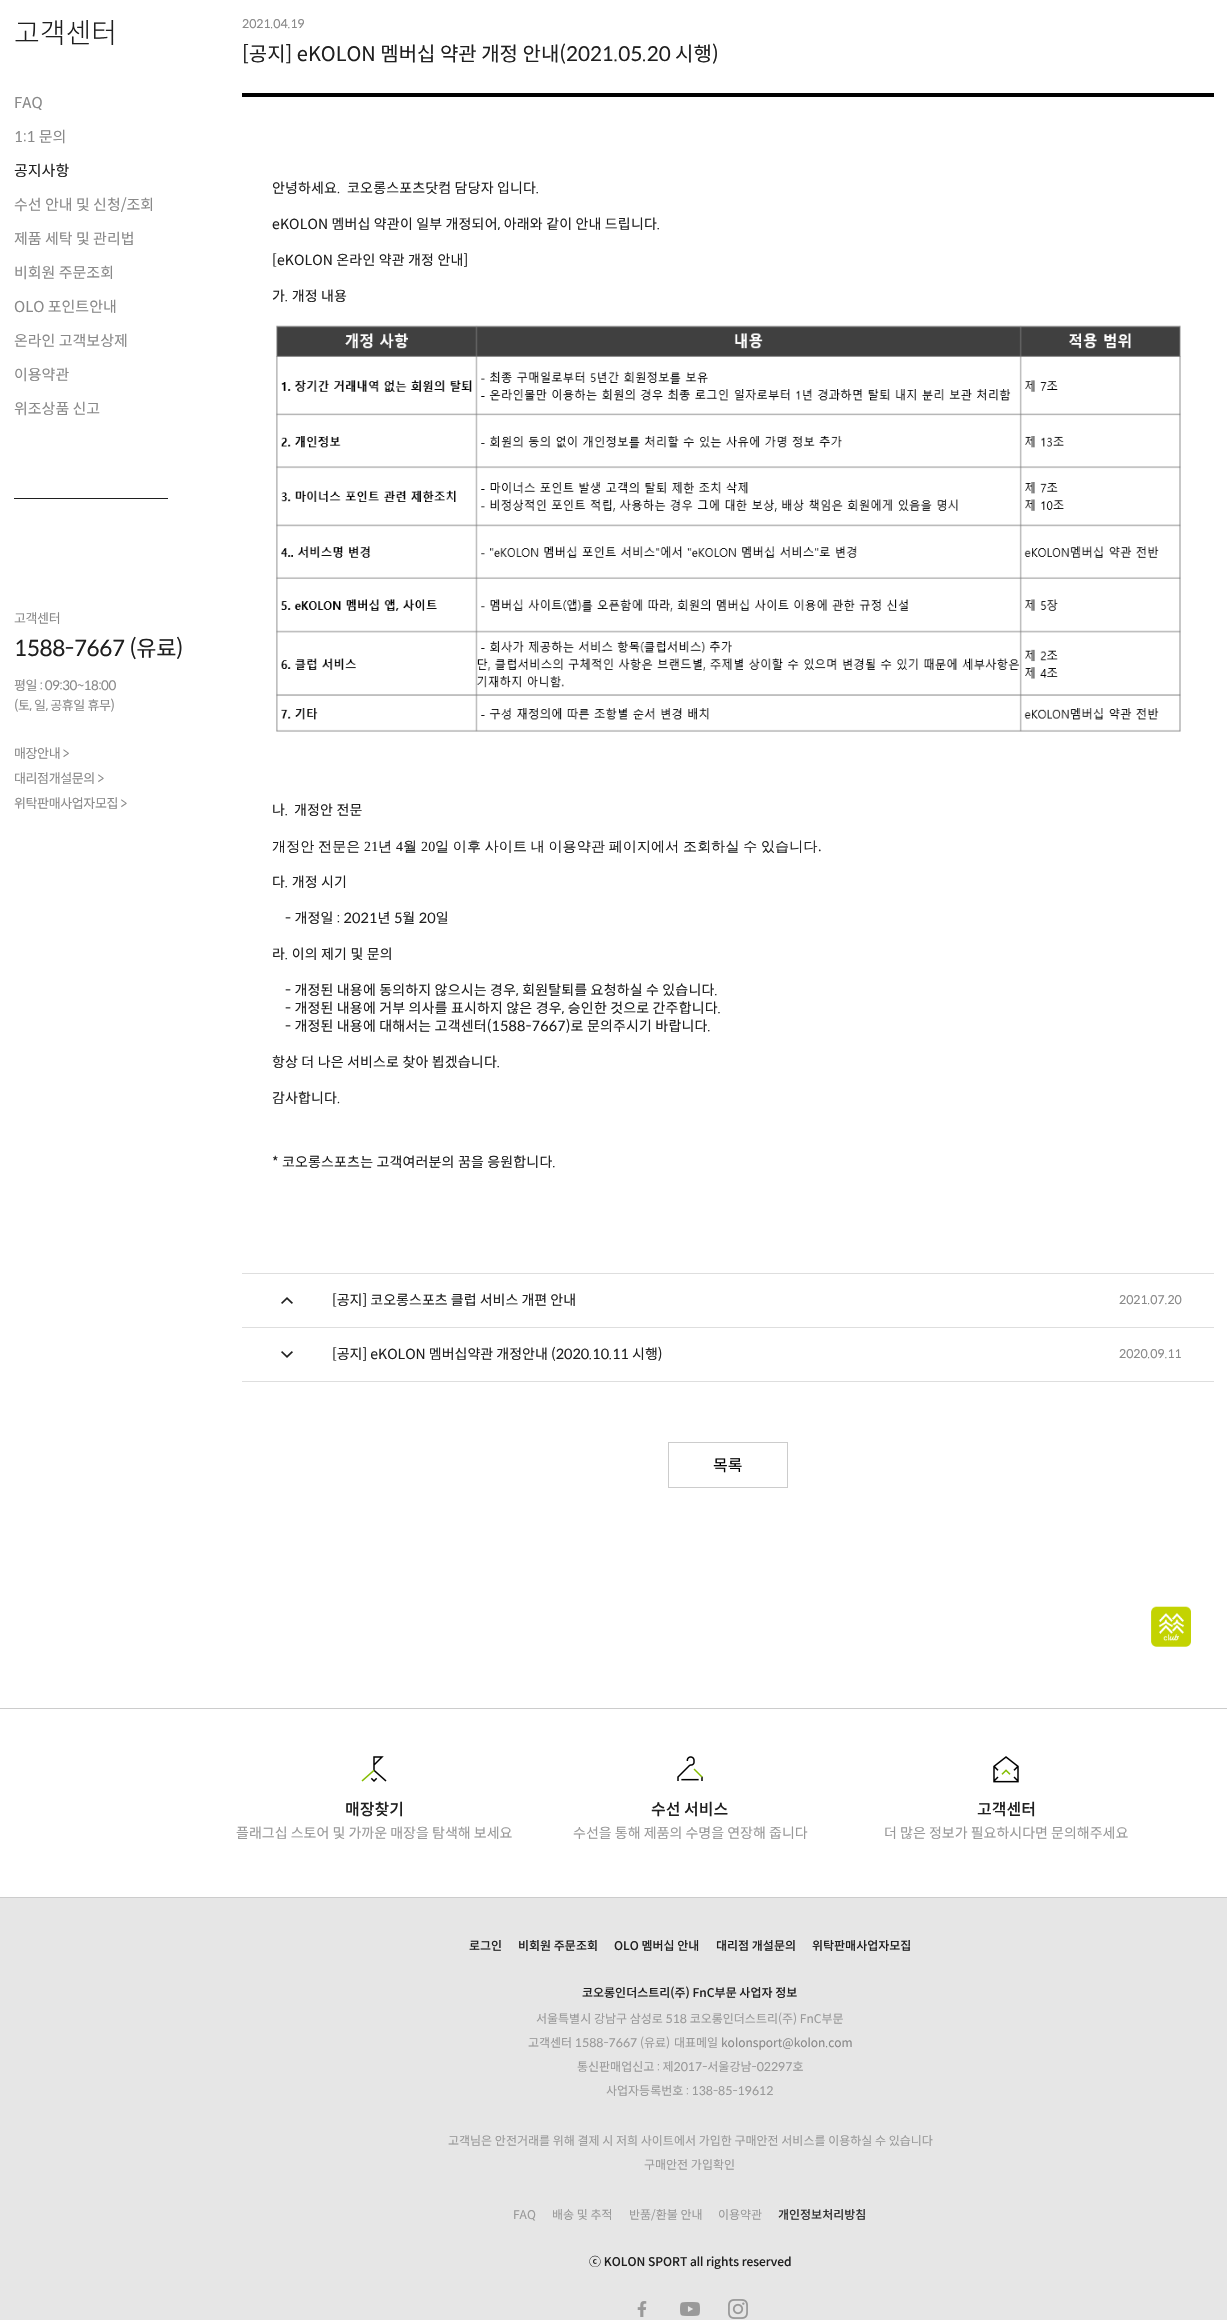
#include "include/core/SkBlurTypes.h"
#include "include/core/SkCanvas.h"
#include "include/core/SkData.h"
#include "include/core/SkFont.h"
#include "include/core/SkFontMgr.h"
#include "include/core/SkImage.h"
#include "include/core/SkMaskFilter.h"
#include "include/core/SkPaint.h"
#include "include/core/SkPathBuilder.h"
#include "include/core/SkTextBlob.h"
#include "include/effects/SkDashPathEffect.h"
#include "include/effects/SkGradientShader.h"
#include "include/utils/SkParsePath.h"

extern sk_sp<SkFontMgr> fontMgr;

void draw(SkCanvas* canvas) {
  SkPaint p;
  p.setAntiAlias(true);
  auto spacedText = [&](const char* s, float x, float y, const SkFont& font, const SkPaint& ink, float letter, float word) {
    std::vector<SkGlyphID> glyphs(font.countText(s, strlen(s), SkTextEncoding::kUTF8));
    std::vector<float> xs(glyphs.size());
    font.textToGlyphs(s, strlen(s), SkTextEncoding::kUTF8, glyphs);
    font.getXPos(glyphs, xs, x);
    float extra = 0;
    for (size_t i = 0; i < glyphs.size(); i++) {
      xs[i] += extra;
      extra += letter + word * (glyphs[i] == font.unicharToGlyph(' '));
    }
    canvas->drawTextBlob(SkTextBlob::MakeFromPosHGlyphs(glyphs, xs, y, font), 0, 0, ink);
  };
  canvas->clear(SK_ColorWHITE);
  p.setColor(SkColorSetRGB(31, 31, 31));
  canvas->drawRect(SkRect::MakeLTRB(14, 498, 168, 499), p);
  p.setColor(SK_ColorBLACK);
  canvas->drawRect(SkRect::MakeLTRB(242, 93, 1214, 97), p);
  canvas->drawImageRect(SkImages::DeferredFromEncodedData(SkData::MakeFromFileName("images/1.png")), SkRect::MakeLTRB(276, 325, 1181, 732), SkSamplingOptions());
  p.setColor(SkColorSetRGB(222, 222, 222));
  canvas->drawRect(SkRect::MakeLTRB(242, 1381, 1214, 1382), p);
  canvas->drawRect(SkRect::MakeLTRB(242, 1273, 1214, 1274), p);
  canvas->drawImageRect(SkImages::DeferredFromEncodedData(SkData::MakeFromFileName("images/2.png")), SkRect::MakeLTRB(281, 1297, 293, 1304), SkSamplingOptions());
  canvas->drawRect(SkRect::MakeLTRB(242, 1327, 1214, 1328), p);
  canvas->drawImageRect(SkImages::DeferredFromEncodedData(SkData::MakeFromFileName("images/3.png")), SkRect::MakeLTRB(281, 1351, 293, 1358), SkSamplingOptions());
  p.setStyle(SkPaint::kStroke_Style);
  p.setStrokeWidth(1);
  p.setColor(SkColorSetRGB(204, 204, 204));
  canvas->drawRect(SkRect::MakeLTRB(668.5f, 1442.5f, 787.5f, 1487.5f), p);
  canvas->drawImageRect(SkImages::DeferredFromEncodedData(SkData::MakeFromFileName("images/4.png")), SkRect::MakeLTRB(1151, 1606, 1191, 1647), SkSamplingOptions());
  p.setStyle(SkPaint::kFill_Style);
  p.setColor(SkColorSetRGB(230, 230, 230));
  canvas->drawRect(SkRect::MakeLTRB(0, 1898, 1227, 2320), p);
  p.setColor(SkColorSetRGB(204, 204, 204));
  canvas->drawRect(SkRect::MakeLTRB(0, 1708, 1227, 1709), p);
  canvas->drawImageRect(SkImages::DeferredFromEncodedData(SkData::MakeFromFileName("images/5.png")), SkRect::MakeLTRB(361, 1756, 387, 1782), SkSamplingOptions());
  canvas->drawImageRect(SkImages::DeferredFromEncodedData(SkData::MakeFromFileName("images/6.png")), SkRect::MakeLTRB(677, 1756, 703, 1781), SkSamplingOptions());
  canvas->drawImageRect(SkImages::DeferredFromEncodedData(SkData::MakeFromFileName("images/7.png")), SkRect::MakeLTRB(993, 1756, 1019, 1783), SkSamplingOptions());
  canvas->drawRect(SkRect::MakeLTRB(0, 1897, 1227, 1898), p);
  canvas->drawImageRect(SkImages::DeferredFromEncodedData(SkData::MakeFromFileName("images/8.png")), SkRect::MakeLTRB(637, 2301, 647, 2317), SkSamplingOptions());
  canvas->drawImageRect(SkImages::DeferredFromEncodedData(SkData::MakeFromFileName("images/9.png")), SkRect::MakeLTRB(680, 2302, 700, 2316), SkSamplingOptions());
  canvas->drawImageRect(SkImages::DeferredFromEncodedData(SkData::MakeFromFileName("images/10.png")), SkRect::MakeLTRB(728, 2299, 748, 2319), SkSamplingOptions());
  SkFont font1(fontMgr->matchFamilyStyle("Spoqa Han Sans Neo", SkFontStyle(300, SkFontStyle::kNormal_Width, SkFontStyle::kUpright_Slant)), 28);
  font1.setSubpixel(true);
  p.setColor(SkColorSetRGB(31, 31, 31));
  canvas->drawString("고객센터", 14, 43, font1, p);
  SkFont font2(fontMgr->matchFamilyStyle("Spoqa Han Sans Neo", SkFontStyle::Normal()), 15);
  font2.setSubpixel(true);
  p.setColor(SkColorSetRGB(137, 137, 137));
  canvas->drawString("FAQ", 14, 108, font2, p);
  canvas->drawString("1:1 문의", 14, 142, font2, p);
  p.setColor(SkColorSetRGB(31, 31, 31));
  canvas->drawString("공지사항", 14, 176, font2, p);
  p.setColor(SkColorSetRGB(137, 137, 137));
  canvas->drawString("수선 안내 및 신청/조회", 14, 210, font2, p);
  canvas->drawString("제품 세탁 및 관리법", 14, 244, font2, p);
  canvas->drawString("비회원 주문조회", 14, 278, font2, p);
  canvas->drawString("OLO 포인트안내", 14, 312, font2, p);
  canvas->drawString("온라인 고객보상제", 14, 346, font2, p);
  canvas->drawString("이용약관", 14, 380, font2, p);
  canvas->drawString("위조상품 신고", 14, 414, font2, p);
  SkFont font3(fontMgr->matchFamilyStyle("Spoqa Han Sans Neo", SkFontStyle::Normal()), 13);
  font3.setSubpixel(true);
  spacedText("고객센터", 14, 623, font3, p, -0.4f, 0);
  SkFont font4(fontMgr->matchFamilyStyle("Spoqa Han Sans Neo", SkFontStyle::Normal()), 22);
  font4.setSubpixel(true);
  p.setColor(SkColorSetRGB(31, 31, 31));
  spacedText("1588-7667 (유료)", 14, 656, font4, p, -0.4f, 0);
  p.setColor(SkColorSetRGB(137, 137, 137));
  spacedText("평일 : 09:30~18:00", 14, 690, font3, p, -0.4f, 0);
  spacedText("(토, 일, 공휴일 휴무)", 14, 710, font3, p, -0.4f, 0);
  spacedText("매장안내 >", 14, 758, font3, p, -0.4f, 0);
  spacedText("대리점개설문의 >", 14, 783, font3, p, -0.4f, 0);
  spacedText("위탁판매사업자모집 >", 14, 808, font3, p, -0.4f, 0);
  SkFont font5(fontMgr->matchFamilyStyle("Spoqa Han Sans Neo", SkFontStyle::Normal()), 12);
  font5.setSubpixel(true);
  canvas->drawString("2021.04.19", 242, 28, font5, p);
  SkFont font6(fontMgr->matchFamilyStyle("Spoqa Han Sans Neo", SkFontStyle::Normal()), 20);
  font6.setSubpixel(true);
  p.setColor(SkColorSetRGB(31, 31, 31));
  canvas->drawString("[공지] eKOLON 멤버십 약관 개정 안내(2021.05.20 시행)", 242, 61, font6, p);
  SkFont font7(fontMgr->matchFamilyStyle("Spoqa Han Sans Neo", SkFontStyle::Normal()), 14);
  font7.setSubpixel(true);
  spacedText("안녕하세요.  코오롱스포츠닷컴 담당자 입니다.", 272, 193, font7, p, 0.15f, 0);
  spacedText("eKOLON 멤버십 약관이 일부 개정되어, 아래와 같이 안내 드립니다.", 272, 229, font7, p, 0.15f, 0);
  spacedText("[eKOLON 온라인 약관 개정 안내]", 272, 265, font7, p, 0.15f, 0);
  spacedText("가. 개정 내용", 272, 301, font7, p, 0.15f, 0);
  spacedText("나.", 272, 815, font7, p, 0.15f, 0);
  spacedText("개정안 전문", 294, 815, font7, p, 0.15f, 0);
  SkFont font8(fontMgr->matchFamilyStyle("WenQuanYi Zen Hei", SkFontStyle(500, SkFontStyle::kNormal_Width, SkFontStyle::kUpright_Slant)), 14);
  font8.setSubpixel(true);
  spacedText("개정안 전문은", 272, 851, font8, p, 0.15f, -0.75f);
  SkFont font9(fontMgr->matchFamilyStyle("Liberation Serif", SkFontStyle::Normal()), 14);
  font9.setSubpixel(true);
  spacedText("21", 364, 851, font9, p, 0.15f, 0);
  spacedText("년", 378, 851, font8, p, 0.15f, 0);
  spacedText("4", 396, 851, font9, p, 0.15f, 0);
  spacedText("월", 403, 851, font8, p, 0.15f, 0);
  spacedText("20", 421, 851, font9, p, 0.15f, 0);
  spacedText("일 이후 사이트 내 이용약관 페이지에서 조회하실 수 있습니다", 435, 851, font8, p, 0.15f, -0.75f);
  spacedText(".", 818, 851, font9, p, 0.15f, 0);
  spacedText("다. 개정 시기", 272, 887, font7, p, 0.15f, 0);
  spacedText("- 개정일 : 2021년 5월 20일", 285, 923, font7, p, 0.15f, 0);
  spacedText("라. 이의 제기 및 문의", 272, 959, font7, p, 0.15f, 0);
  spacedText("- 개정된 내용에 동의하지 않으시는 경우, 회원탈퇴를 요청하실 수 있습니다.", 285, 995, font7, p, 0.15f, 0);
  spacedText("- 개정된 내용에 거부 의사를 표시하지 않은 경우, 승인한 것으로 간주합니다.", 285, 1013, font7, p, 0.15f, 0);
  spacedText("- 개정된 내용에 대해서는 고객센터(1588-7667)로 문의주시기 바랍니다.", 285, 1031, font7, p, 0.15f, 0);
  spacedText("항상 더 나은 서비스로 찾아 뵙겠습니다.", 272, 1067, font7, p, 0.15f, 0);
  spacedText("감사합니다.", 272, 1103, font7, p, 0.15f, 0);
  spacedText("* 코오롱스포츠는 고객여러분의 꿈을 응원합니다.", 272, 1167, font7, p, 0.15f, 0);
  canvas->drawString("[공지] 코오롱스포츠 클럽 서비스 개편 안내", 332, 1305, font7, p);
  p.setColor(SkColorSetRGB(137, 137, 137));
  canvas->drawString("2021.07.20", 1119, 1304, font5, p);
  p.setColor(SkColorSetRGB(31, 31, 31));
  canvas->drawString("[공지] eKOLON 멤버십약관 개정안내 (2020.10.11 시행)", 332, 1359, font7, p);
  p.setColor(SkColorSetRGB(137, 137, 137));
  canvas->drawString("2020.09.11", 1119, 1358, font5, p);
  SkFont font10(fontMgr->matchFamilyStyle("Spoqa Han Sans Neo", SkFontStyle::Normal()), 16);
  font10.setSubpixel(true);
  p.setColor(SK_ColorBLACK);
  canvas->drawString("목록", 713, 1471, font10, p);
  SkFont font11(fontMgr->matchFamilyStyle("Spoqa Han Sans Neo", SkFontStyle(500, SkFontStyle::kNormal_Width, SkFontStyle::kUpright_Slant)), 16);
  font11.setSubpixel(true);
  p.setColor(SkColorSetRGB(31, 31, 31));
  canvas->drawString("매장찾기", 345, 1815, font11, p);
  p.setColor(SkColorSetRGB(153, 153, 153));
  canvas->drawString("플래그십 스토어 및 가까운 매장을 탐색해 보세요", 236, 1838, font7, p);
  p.setColor(SkColorSetRGB(31, 31, 31));
  canvas->drawString("수선 서비스", 651, 1815, font11, p);
  p.setColor(SkColorSetRGB(153, 153, 153));
  canvas->drawString("수선을 통해 제품의 수명을 연장해 줍니다", 573, 1838, font7, p);
  p.setColor(SkColorSetRGB(31, 31, 31));
  canvas->drawString("고객센터", 977, 1815, font11, p);
  p.setColor(SkColorSetRGB(153, 153, 153));
  canvas->drawString("더 많은 정보가 필요하시다면 문의해주세요", 884, 1838, font7, p);
  SkFont font12(fontMgr->matchFamilyStyle("Spoqa Han Sans Neo", SkFontStyle(500, SkFontStyle::kNormal_Width, SkFontStyle::kUpright_Slant)), 12);
  font12.setSubpixel(true);
  p.setColor(SkColorSetRGB(31, 31, 31));
  canvas->drawString("로그인", 469, 1950, font12, p);
  canvas->drawString("비회원 주문조회", 518, 1950, font12, p);
  canvas->drawString("OLO 멤버십 안내", 614, 1950, font12, p);
  canvas->drawString("대리점 개설문의", 716, 1950, font12, p);
  canvas->drawString("위탁판매사업자모집", 812, 1950, font12, p);
  canvas->drawString("코오롱인더스트리(주) FnC부문 사업자 정보", 582, 1997, font12, p);
  p.setColor(SkColorSetRGB(153, 153, 153));
  canvas->drawString("서울특별시 강남구 삼성로 518 코오롱인더스트리(주) FnC부문", 536, 2023, font5, p);
  canvas->drawString("고객센터 1588-7667 (유료)", 528, 2047, font5, p);
  canvas->drawString("대표메일", 674, 2047, font5, p);
  p.setColor(SkColorSetRGB(137, 137, 137));
  canvas->drawString("kolonsport@kolon.com", 721, 2047, font5, p);
  p.setColor(SkColorSetRGB(153, 153, 153));
  canvas->drawString("통신판매업신고 : 제2017-서울강남-02297호", 577, 2071, font5, p);
  canvas->drawString("사업자등록번호 : 138-85-19612", 606, 2095, font5, p);
  canvas->drawString("고객님은 안전거래를 위해 결제 시 저희 사이트에서 가입한 구매안전 서비스를 이용하실 수 있습니다", 448, 2145, font5, p);
  canvas->drawString("구매안전 가입확인", 644, 2169, font5, p);
  canvas->drawString("FAQ", 513, 2219, font5, p);
  canvas->drawString("배송 및 추적", 552, 2219, font5, p);
  canvas->drawString("반품/환불 안내", 629, 2219, font5, p);
  canvas->drawString("이용약관", 718, 2219, font5, p);
  p.setColor(SkColorSetRGB(51, 51, 51));
  canvas->drawString("개인정보처리방침", 778, 2219, font12, p);
  p.setColor(SkColorSetRGB(31, 31, 31));
  canvas->drawString("ⓒ KOLON SPORT all rights reserved", 589, 2266, font12, p);
}
